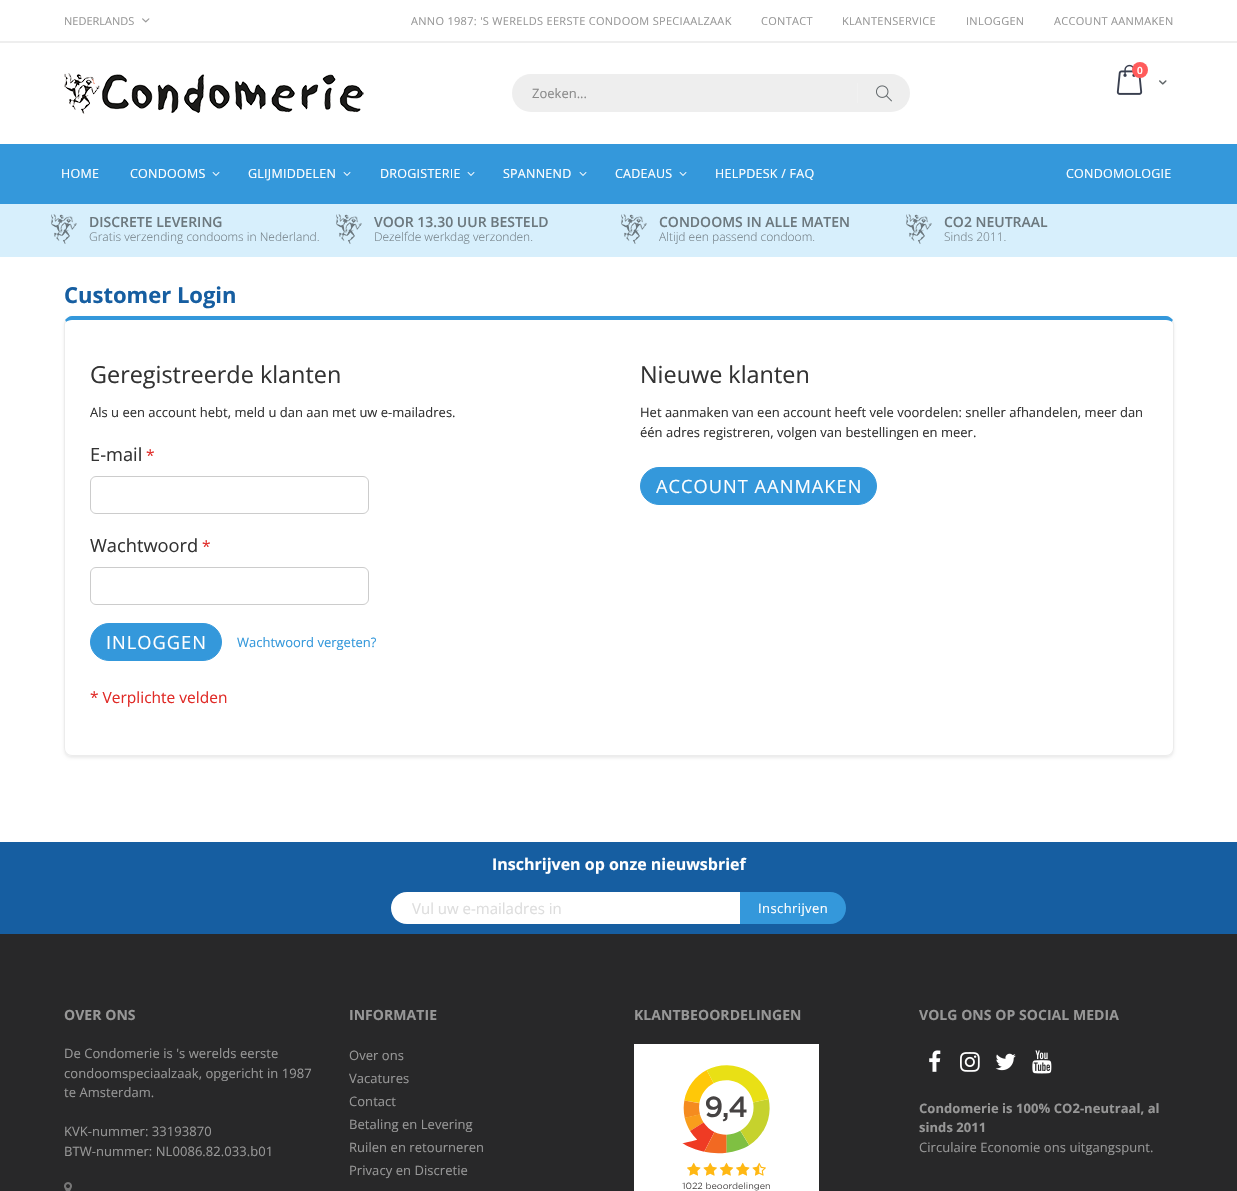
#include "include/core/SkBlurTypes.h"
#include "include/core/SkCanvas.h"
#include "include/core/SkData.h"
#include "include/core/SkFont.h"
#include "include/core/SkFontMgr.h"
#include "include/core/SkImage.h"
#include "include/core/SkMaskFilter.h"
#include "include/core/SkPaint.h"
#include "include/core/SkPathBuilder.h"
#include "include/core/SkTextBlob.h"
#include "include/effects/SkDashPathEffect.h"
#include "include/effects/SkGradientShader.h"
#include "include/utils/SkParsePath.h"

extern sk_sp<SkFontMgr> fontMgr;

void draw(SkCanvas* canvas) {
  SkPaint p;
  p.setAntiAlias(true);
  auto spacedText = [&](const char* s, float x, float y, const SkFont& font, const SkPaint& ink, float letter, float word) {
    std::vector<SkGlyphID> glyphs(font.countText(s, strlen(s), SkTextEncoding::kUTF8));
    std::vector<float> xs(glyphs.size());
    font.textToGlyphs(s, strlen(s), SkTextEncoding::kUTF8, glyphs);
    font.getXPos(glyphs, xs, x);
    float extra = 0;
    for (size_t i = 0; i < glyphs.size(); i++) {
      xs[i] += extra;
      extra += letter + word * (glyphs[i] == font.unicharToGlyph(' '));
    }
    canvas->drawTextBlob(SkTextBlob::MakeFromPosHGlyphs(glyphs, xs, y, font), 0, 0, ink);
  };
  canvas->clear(SK_ColorWHITE);
  p.setColor(SkColorSetRGB(238, 238, 238));
  canvas->drawRect(SkRect::MakeLTRB(0, 41, 1237, 43), p);
  canvas->drawImageRect(SkImages::DeferredFromEncodedData(SkData::MakeFromFileName("images/1.png")), SkRect::MakeLTRB(142, 18, 150, 23), SkSamplingOptions());
  canvas->drawImageRect(SkImages::DeferredFromEncodedData(SkData::MakeFromFileName("images/2.png")), SkRect::MakeLTRB(1116, 64, 1143, 95), SkSamplingOptions());
  p.setColor(SkColorSetRGB(255, 91, 91));
  canvas->drawCircle(1140, 70, 8, p);
  canvas->drawImageRect(SkImages::DeferredFromEncodedData(SkData::MakeFromFileName("images/3.png")), SkRect::MakeLTRB(1159, 80, 1167, 85), SkSamplingOptions());
  canvas->drawImageRect(SkImages::DeferredFromEncodedData(SkData::MakeFromFileName("images/4.png")), SkRect::MakeLTRB(64, 73, 364, 114), SkSamplingOptions());
  p.setColor(SkColorSetRGB(238, 238, 238));
  canvas->drawRoundRect(SkRect::MakeLTRB(512, 74, 910, 112), 19, 19, p);
  p.setColor(SkColorSetRGB(241, 241, 241));
  canvas->drawRect(SkRect::MakeLTRB(857, 83, 858, 103), p);
  canvas->drawImageRect(SkImages::DeferredFromEncodedData(SkData::MakeFromFileName("images/5.png")), SkRect::MakeLTRB(876, 85, 892, 102), SkSamplingOptions());
  p.setColor(SkColorSetRGB(52, 152, 219));
  canvas->drawRect(SkRect::MakeLTRB(0, 144, 1237, 204), p);
  canvas->drawImageRect(SkImages::DeferredFromEncodedData(SkData::MakeFromFileName("images/6.png")), SkRect::MakeLTRB(212, 172, 220, 176), SkSamplingOptions());
  canvas->drawImageRect(SkImages::DeferredFromEncodedData(SkData::MakeFromFileName("images/6.png")), SkRect::MakeLTRB(343, 172, 351, 176), SkSamplingOptions());
  canvas->drawImageRect(SkImages::DeferredFromEncodedData(SkData::MakeFromFileName("images/6.png")), SkRect::MakeLTRB(467, 172, 475, 176), SkSamplingOptions());
  canvas->drawImageRect(SkImages::DeferredFromEncodedData(SkData::MakeFromFileName("images/6.png")), SkRect::MakeLTRB(579, 172, 587, 176), SkSamplingOptions());
  canvas->drawImageRect(SkImages::DeferredFromEncodedData(SkData::MakeFromFileName("images/6.png")), SkRect::MakeLTRB(679, 172, 687, 176), SkSamplingOptions());
  p.setColor(SkColorSetRGB(215, 239, 252));
  canvas->drawRect(SkRect::MakeLTRB(0, 204, 1237, 257), p);
  canvas->drawImageRect(SkImages::DeferredFromEncodedData(SkData::MakeFromFileName("images/7.png")), SkRect::MakeLTRB(51, 214, 77, 244), SkSamplingOptions());
  canvas->drawImageRect(SkImages::DeferredFromEncodedData(SkData::MakeFromFileName("images/7.png")), SkRect::MakeLTRB(336, 214, 362, 244), SkSamplingOptions());
  canvas->drawImageRect(SkImages::DeferredFromEncodedData(SkData::MakeFromFileName("images/7.png")), SkRect::MakeLTRB(621, 214, 647, 244), SkSamplingOptions());
  canvas->drawImageRect(SkImages::DeferredFromEncodedData(SkData::MakeFromFileName("images/7.png")), SkRect::MakeLTRB(906, 214, 932, 244), SkSamplingOptions());
  canvas->save();
  canvas->clipPath(SkPathBuilder(SkPathFillType::kEvenOdd).moveTo(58, 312).lineTo(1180, 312).lineTo(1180, 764).lineTo(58, 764).close().moveTo(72, 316).lineTo(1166, 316).cubicTo(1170.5f, 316, 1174, 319.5f, 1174, 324).lineTo(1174, 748).cubicTo(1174, 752.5f, 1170.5f, 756, 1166, 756).lineTo(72, 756).cubicTo(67.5f, 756, 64, 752.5f, 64, 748).lineTo(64, 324).cubicTo(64, 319.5f, 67.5f, 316, 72, 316).close().detach(), true);
  p.setColor(SkColorSetARGB(20, 0, 0, 0));
  p.setMaskFilter(SkMaskFilter::MakeBlur(kNormal_SkBlurStyle, 1.5f));
  canvas->drawRoundRect(SkRect::MakeLTRB(64, 318, 1174, 758), 8, 8, p);
  p.setMaskFilter(nullptr);
  canvas->restore();
  p.setColor(SkColorSetRGB(52, 152, 219));
  canvas->drawPath(SkPathBuilder().moveTo(72, 316).cubicTo(69, 316, 67, 318, 65, 320).lineTo(66, 322).cubicTo(67, 321, 69, 320, 72, 320).lineTo(1166, 320).cubicTo(1169, 320, 1171, 321, 1172, 322).lineTo(1173, 320).cubicTo(1171, 318, 1169, 316, 1166, 316).close().detach(), p);
  p.setColor(SkColorSetRGB(236, 236, 236));
  canvas->drawPath(SkPathBuilder().moveTo(1174, 748).lineTo(1174, 324).lineTo(1173, 320).lineTo(1172, 322).lineTo(1173, 324).lineTo(1173, 748).cubicTo(1173, 750, 1172, 752, 1171, 753).lineTo(1172, 754).cubicTo(1173, 752, 1174, 750, 1174, 748).close().detach(), p);
  canvas->drawPath(SkPathBuilder().moveTo(72, 756).lineTo(1166, 756).cubicTo(1168, 756, 1170, 755, 1172, 754).lineTo(1171, 753).cubicTo(1170, 754, 1168, 755, 1166, 755).lineTo(72, 755).cubicTo(70, 755, 68, 754, 67, 753).lineTo(66, 754).cubicTo(68, 755, 70, 756, 72, 756).close().detach(), p);
  canvas->drawPath(SkPathBuilder().moveTo(64, 324).lineTo(64, 748).cubicTo(64, 750, 65, 752, 66, 754).lineTo(67, 753).cubicTo(66, 752, 65, 750, 65, 748).lineTo(65, 324).lineTo(66, 322).lineTo(65, 320).close().detach(), p);
  p.setStyle(SkPaint::kStroke_Style);
  p.setStrokeWidth(1);
  p.setColor(SkColorSetRGB(204, 204, 204));
  canvas->drawRoundRect(SkRect::MakeLTRB(90.5f, 476.5f, 368.5f, 513.5f), 5.5f, 5.5f, p);
  canvas->drawRoundRect(SkRect::MakeLTRB(90.5f, 567.5f, 368.5f, 604.5f), 5.5f, 5.5f, p);
  p.setStyle(SkPaint::kFill_Style);
  p.setColor(SkColorSetRGB(52, 152, 219));
  canvas->drawRoundRect(SkRect::MakeLTRB(90.5f, 623.5f, 221.5f, 660.5f), 18.5f, 18.5f, p);
  p.setStyle(SkPaint::kStroke_Style);
  canvas->drawRoundRect(SkRect::MakeLTRB(90.5f, 623.5f, 221.5f, 660.5f), 18.5f, 18.5f, p);
  p.setStyle(SkPaint::kFill_Style);
  canvas->drawRoundRect(SkRect::MakeLTRB(640.5f, 467.5f, 876.5f, 504.5f), 18.5f, 18.5f, p);
  p.setStyle(SkPaint::kStroke_Style);
  canvas->drawRoundRect(SkRect::MakeLTRB(640.5f, 467.5f, 876.5f, 504.5f), 18.5f, 18.5f, p);
  p.setStyle(SkPaint::kFill_Style);
  p.setColor(SkColorSetRGB(22, 94, 161));
  canvas->drawRect(SkRect::MakeLTRB(0, 842, 1237, 934), p);
  p.setColor(SK_ColorWHITE);
  canvas->drawPath(SkPathBuilder().moveTo(407, 892).lineTo(741, 892).lineTo(741, 924).lineTo(407, 924).cubicTo(398, 924, 391, 917, 391, 908).cubicTo(391, 899, 398, 892, 407, 892).close().detach(), p);
  p.setColor(SkColorSetRGB(52, 152, 219));
  canvas->drawPath(SkPathBuilder().moveTo(740, 892).lineTo(830, 892).cubicTo(839, 892, 846, 899, 846, 908).cubicTo(846, 917, 839, 924, 830, 924).lineTo(740, 924).close().detach(), p);
  p.setColor(SkColorSetRGB(40, 40, 41));
  canvas->drawRect(SkRect::MakeLTRB(0, 934, 1237, 1191), p);
  canvas->drawImageRect(SkImages::DeferredFromEncodedData(SkData::MakeFromFileName("images/8.png")), SkRect::MakeLTRB(64, 1182, 72, 1191), SkSamplingOptions());
  canvas->drawImageRect(SkImages::DeferredFromEncodedData(SkData::MakeFromFileName("images/9.png")), SkRect::MakeLTRB(634, 1044, 819, 1191), SkSamplingOptions());
  canvas->drawImageRect(SkImages::DeferredFromEncodedData(SkData::MakeFromFileName("images/10.png")), SkRect::MakeLTRB(929, 1050, 941, 1072), SkSamplingOptions());
  canvas->drawImageRect(SkImages::DeferredFromEncodedData(SkData::MakeFromFileName("images/11.png")), SkRect::MakeLTRB(960, 1052, 980, 1072), SkSamplingOptions());
  canvas->drawImageRect(SkImages::DeferredFromEncodedData(SkData::MakeFromFileName("images/12.png")), SkRect::MakeLTRB(995, 1053, 1016, 1071), SkSamplingOptions());
  canvas->drawImageRect(SkImages::DeferredFromEncodedData(SkData::MakeFromFileName("images/13.png")), SkRect::MakeLTRB(1032, 1050, 1052, 1074), SkSamplingOptions());
  SkFont font1(fontMgr->matchFamilyStyle("Open Sans", SkFontStyle::Normal()), 11);
  font1.setSubpixel(true);
  p.setColor(SkColorSetRGB(151, 151, 151));
  canvas->drawString("NEDERLANDS", 64, 25, font1, p);
  spacedText("ANNO 1987: 'S WERELDS EERSTE CONDOOM SPECIAALZAAK", 411, 25, font1, p, 0.3f, 0);
  spacedText("CONTACT", 761, 25, font1, p, 0.3f, 0);
  spacedText("KLANTENSERVICE", 842, 25, font1, p, 0.3f, 0);
  spacedText("INLOGGEN", 966, 25, font1, p, 0.3f, 0);
  spacedText("ACCOUNT AANMAKEN", 1054, 25, font1, p, 0.3f, 0);
  SkFont font2(fontMgr->matchFamilyStyle("Open Sans", SkFontStyle(600, SkFontStyle::kNormal_Width, SkFontStyle::kUpright_Slant)), 10);
  font2.setSubpixel(true);
  p.setColor(SK_ColorWHITE);
  canvas->drawString("0", 1137, 74, font2, p);
  SkFont font3(fontMgr->matchFamilyStyle("Open Sans", SkFontStyle::Normal()), 13);
  font3.setSubpixel(true);
  p.setColor(SkColorSetRGB(138, 138, 138));
  canvas->drawString("Zoeken...", 532, 98, font3, p);
  SkFont font4(fontMgr->matchFamilyStyle("Open Sans", SkFontStyle::Normal()), 12.5f);
  font4.setSubpixel(true);
  p.setColor(SK_ColorWHITE);
  spacedText("HOME", 61, 178, font4, p, 0.25f, 0);
  spacedText("CONDOOMS", 130, 178, font4, p, 0.25f, 0);
  spacedText("GLIJMIDDELEN", 248, 178, font4, p, 0.25f, 0);
  spacedText("DROGISTERIE", 380, 178, font4, p, 0.25f, 0);
  spacedText("SPANNEND", 503, 178, font4, p, 0.25f, 0);
  spacedText("CADEAUS", 615, 178, font4, p, 0.25f, 0);
  spacedText("HELPDESK / FAQ", 715, 178, font4, p, 0.25f, 0);
  spacedText("CONDOMOLOGIE", 1066, 178, font4, p, 0.25f, 0);
  SkFont font5(fontMgr->matchFamilyStyle("Open Sans", SkFontStyle(600, SkFontStyle::kNormal_Width, SkFontStyle::kUpright_Slant)), 14);
  font5.setSubpixel(true);
  p.setColor(SkColorSetRGB(108, 120, 126));
  canvas->drawString("DISCRETE LEVERING", 89, 227, font5, p);
  SkFont font6(fontMgr->matchFamilyStyle("Open Sans", SkFontStyle(300, SkFontStyle::kNormal_Width, SkFontStyle::kUpright_Slant)), 12);
  font6.setSubpixel(true);
  p.setColor(SkColorSetRGB(116, 128, 135));
  canvas->drawString("Gratis verzending condooms in Nederland.", 89, 241, font6, p);
  p.setColor(SkColorSetRGB(108, 120, 126));
  canvas->drawString("VOOR 13.30 UUR BESTELD", 374, 227, font5, p);
  p.setColor(SkColorSetRGB(116, 128, 135));
  canvas->drawString("Dezelfde werkdag verzonden.", 374, 241, font6, p);
  p.setColor(SkColorSetRGB(108, 120, 126));
  canvas->drawString("CONDOOMS IN ALLE MATEN", 659, 227, font5, p);
  p.setColor(SkColorSetRGB(116, 128, 135));
  canvas->drawString("Altijd een passend condoom.", 659, 241, font6, p);
  p.setColor(SkColorSetRGB(108, 120, 126));
  canvas->drawString("CO2 NEUTRAAL", 944, 227, font5, p);
  p.setColor(SkColorSetRGB(116, 128, 135));
  canvas->drawString("Sinds 2011.", 944, 241, font6, p);
  SkFont font7(fontMgr->matchFamilyStyle("Open Sans", SkFontStyle::Bold()), 22);
  font7.setSubpixel(true);
  p.setColor(SkColorSetRGB(22, 94, 161));
  canvas->drawString("Customer Login", 64, 303, font7, p);
  SkFont font8(fontMgr->matchFamilyStyle("Open Sans", SkFontStyle::Normal()), 23.4f);
  font8.setSubpixel(true);
  p.setColor(SkColorSetRGB(51, 51, 51));
  canvas->drawString("Geregistreerde klanten", 90, 383, font8, p);
  canvas->drawString("Als u een account hebt, meld u dan aan met uw e-mailadres.", 90, 417, font3, p);
  SkFont font9(fontMgr->matchFamilyStyle("Open Sans", SkFontStyle::Normal()), 18.25f);
  font9.setSubpixel(true);
  canvas->drawString("E-mail", 90, 461, font9, p);
  SkFont font10(fontMgr->matchFamilyStyle("Open Sans", SkFontStyle::Normal()), 15.5f);
  font10.setSubpixel(true);
  p.setColor(SkColorSetRGB(224, 43, 39));
  canvas->drawString("*", 146, 461, font10, p);
  p.setColor(SkColorSetRGB(51, 51, 51));
  canvas->drawString("Wachtwoord", 90, 552, font9, p);
  p.setColor(SkColorSetRGB(224, 43, 39));
  canvas->drawString("*", 202, 552, font10, p);
  p.setColor(SK_ColorWHITE);
  spacedText("INLOGGEN", 106, 649, font9, p, 1, 0);
  p.setColor(SkColorSetRGB(52, 152, 219));
  canvas->drawString("Wachtwoord vergeten?", 237, 647, font3, p);
  p.setColor(SkColorSetRGB(224, 43, 39));
  canvas->drawString("* Verplichte velden", 90, 703, font10, p);
  p.setColor(SkColorSetRGB(51, 51, 51));
  canvas->drawString("Nieuwe klanten", 640, 383, font8, p);
  canvas->drawString("Het aanmaken van een account heeft vele voordelen: sneller afhandelen, meer dan", 640, 417, font3, p);
  canvas->drawString("één adres registreren, volgen van bestellingen en meer.", 640, 437, font3, p);
  p.setColor(SK_ColorWHITE);
  spacedText("ACCOUNT AANMAKEN", 656, 493, font9, p, 1, 0);
  SkFont font11(fontMgr->matchFamilyStyle("Open Sans", SkFontStyle::Bold()), 16);
  font11.setSubpixel(true);
  canvas->drawString("Inschrijven op onze nieuwsbrief", 492, 870, font11, p);
  SkFont font12(fontMgr->matchFamilyStyle("Open Sans", SkFontStyle::Normal()), 15);
  font12.setSubpixel(true);
  p.setColor(SkColorSetRGB(221, 221, 221));
  canvas->drawString("Vul uw e-mailadres in", 412, 914, font12, p);
  p.setColor(SK_ColorWHITE);
  spacedText("Inschrijven", 758, 913, font3, p, 0.4f, 0);
  SkFont font13(fontMgr->matchFamilyStyle("Open Sans", SkFontStyle::Bold()), 14);
  font13.setSubpixel(true);
  p.setColor(SkColorSetRGB(151, 151, 151));
  spacedText("OVER ONS", 64, 1020, font13, p, 0.05f, 0);
  spacedText("De Condomerie is 's werelds eerste", 64, 1058, font3, p, 0.05f, 0);
  spacedText("condoomspeciaalzaak, opgericht in 1987", 64, 1078, font3, p, 0.05f, 0);
  spacedText("te Amsterdam.", 64, 1097, font3, p, 0.05f, 0);
  spacedText("KVK-nummer: 33193870", 64, 1136, font3, p, 0.05f, 0);
  spacedText("BTW-nummer: NL0086.82.033.b01", 64, 1156, font3, p, 0.05f, 0);
  spacedText("INFORMATIE", 349, 1020, font13, p, 0.05f, 0);
  spacedText("Over ons", 349, 1060, font3, p, 0.05f, 0);
  spacedText("Vacatures", 349, 1083, font3, p, 0.05f, 0);
  spacedText("Contact", 349, 1106, font3, p, 0.05f, 0);
  spacedText("Betaling en Levering", 349, 1129, font3, p, 0.05f, 0);
  spacedText("Ruilen en retourneren", 349, 1152, font3, p, 0.05f, 0);
  spacedText("Privacy en Discretie", 349, 1175, font3, p, 0.05f, 0);
  spacedText("KLANTBEOORDELINGEN", 634, 1020, font13, p, 0.05f, 0);
  spacedText("VOLG ONS OP SOCIAL MEDIA", 919, 1020, font13, p, 0.05f, 0);
  SkFont font14(fontMgr->matchFamilyStyle("Open Sans", SkFontStyle::Bold()), 13);
  font14.setSubpixel(true);
  spacedText("Condomerie is 100% CO2-neutraal, al", 919, 1113, font14, p, 0.05f, 0);
  spacedText("sinds 2011", 919, 1132, font14, p, 0.05f, 0);
  spacedText("Circulaire Economie ons uitgangspunt.", 919, 1152, font3, p, 0.05f, 0);
}
